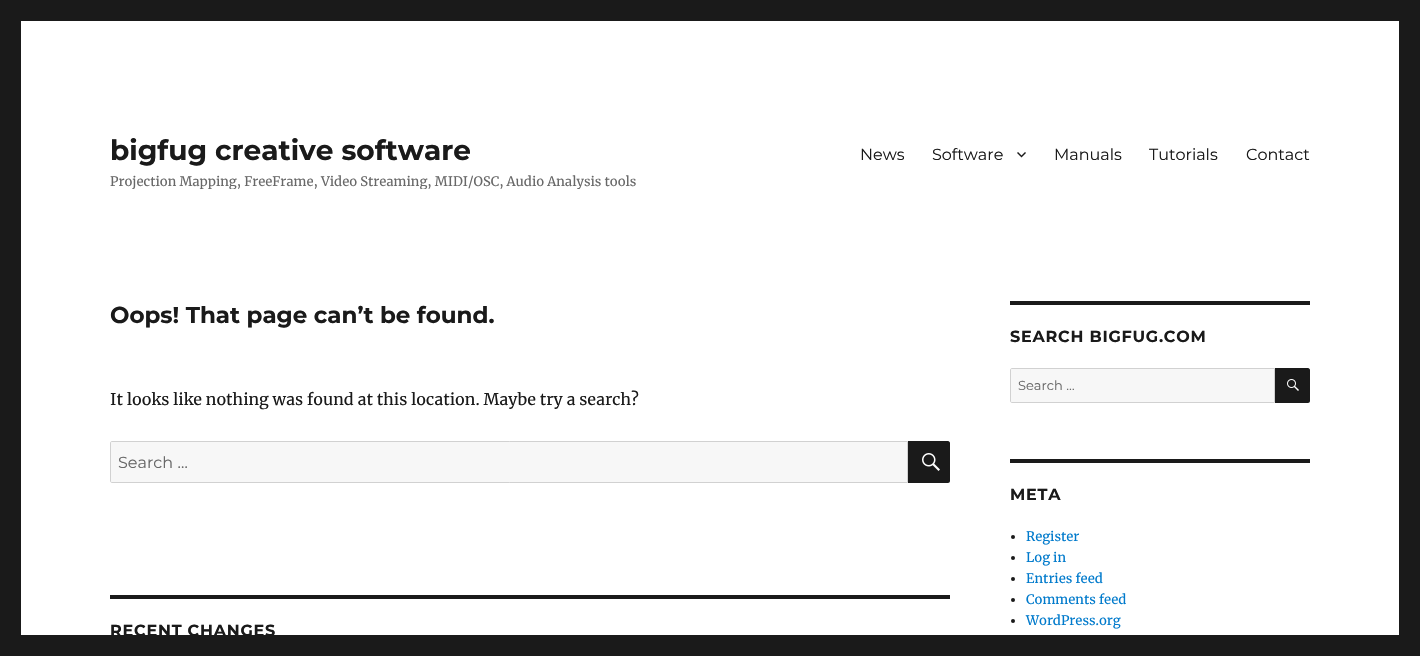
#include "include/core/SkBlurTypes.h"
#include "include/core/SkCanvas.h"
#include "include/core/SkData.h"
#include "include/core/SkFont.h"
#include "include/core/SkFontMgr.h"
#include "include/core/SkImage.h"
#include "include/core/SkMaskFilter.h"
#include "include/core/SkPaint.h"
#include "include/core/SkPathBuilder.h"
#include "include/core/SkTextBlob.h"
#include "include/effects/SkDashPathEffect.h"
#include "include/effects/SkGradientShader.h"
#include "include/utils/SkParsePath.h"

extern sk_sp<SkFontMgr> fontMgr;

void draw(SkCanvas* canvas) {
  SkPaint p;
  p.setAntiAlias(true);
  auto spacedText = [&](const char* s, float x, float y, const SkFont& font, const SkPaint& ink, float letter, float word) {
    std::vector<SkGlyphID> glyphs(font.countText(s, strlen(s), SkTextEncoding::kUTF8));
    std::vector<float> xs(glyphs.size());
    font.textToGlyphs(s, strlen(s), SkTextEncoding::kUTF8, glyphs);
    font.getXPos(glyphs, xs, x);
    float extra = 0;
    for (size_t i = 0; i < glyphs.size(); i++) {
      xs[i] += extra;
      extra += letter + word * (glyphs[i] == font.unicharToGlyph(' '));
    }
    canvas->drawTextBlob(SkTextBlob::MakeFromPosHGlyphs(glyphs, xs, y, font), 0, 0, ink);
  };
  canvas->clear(SkColorSetRGB(26, 26, 26));
  p.setColor(SK_ColorWHITE);
  canvas->drawRect(SkRect::MakeLTRB(21, 21, 1399, 635), p);
  canvas->drawImageRect(SkImages::DeferredFromEncodedData(SkData::MakeFromFileName("images/1.png")), SkRect::MakeLTRB(1017, 152, 1026, 158), SkSamplingOptions());
  p.setColor(SkColorSetRGB(247, 247, 247));
  canvas->drawPath(SkPathBuilder().moveTo(112, 441.5f).lineTo(907.5f, 441.5f).lineTo(907.5f, 482.5f).lineTo(112, 482.5f).cubicTo(111, 482.5f, 110.5f, 482, 110.5f, 481).lineTo(110.5f, 443).cubicTo(110.5f, 442, 111, 441.5f, 112, 441.5f).close().detach(), p);
  p.setStyle(SkPaint::kStroke_Style);
  p.setStrokeWidth(1);
  p.setColor(SkColorSetRGB(209, 209, 209));
  canvas->drawPath(SkPathBuilder().moveTo(112, 441.5f).lineTo(907.5f, 441.5f).lineTo(907.5f, 482.5f).lineTo(112, 482.5f).cubicTo(111, 482.5f, 110.5f, 482, 110.5f, 481).lineTo(110.5f, 443).cubicTo(110.5f, 442, 111, 441.5f, 112, 441.5f).close().detach(), p);
  p.setStyle(SkPaint::kFill_Style);
  p.setColor(SkColorSetRGB(26, 26, 26));
  canvas->drawPath(SkPathBuilder().moveTo(908, 441).lineTo(948, 441).cubicTo(949, 441, 950, 442, 950, 443).lineTo(950, 481).cubicTo(950, 482, 949, 483, 948, 483).lineTo(908, 483).close().detach(), p);
  canvas->drawImageRect(SkImages::DeferredFromEncodedData(SkData::MakeFromFileName("images/2.png")), SkRect::MakeLTRB(922, 453, 940, 471), SkSamplingOptions());
  canvas->drawRect(SkRect::MakeLTRB(110, 595, 950, 599), p);
  canvas->drawRect(SkRect::MakeLTRB(1010, 301, 1310, 305), p);
  p.setColor(SkColorSetRGB(247, 247, 247));
  canvas->drawPath(SkPathBuilder().moveTo(1012, 368.5f).lineTo(1274.5f, 368.5f).lineTo(1274.5f, 402.5f).lineTo(1012, 402.5f).cubicTo(1011, 402.5f, 1010.5f, 402, 1010.5f, 401).lineTo(1010.5f, 370).cubicTo(1010.5f, 369, 1011, 368.5f, 1012, 368.5f).close().detach(), p);
  p.setStyle(SkPaint::kStroke_Style);
  p.setColor(SkColorSetRGB(209, 209, 209));
  canvas->drawPath(SkPathBuilder().moveTo(1012, 368.5f).lineTo(1274.5f, 368.5f).lineTo(1274.5f, 402.5f).lineTo(1012, 402.5f).cubicTo(1011, 402.5f, 1010.5f, 402, 1010.5f, 401).lineTo(1010.5f, 370).cubicTo(1010.5f, 369, 1011, 368.5f, 1012, 368.5f).close().detach(), p);
  p.setStyle(SkPaint::kFill_Style);
  p.setColor(SkColorSetRGB(26, 26, 26));
  canvas->drawPath(SkPathBuilder().moveTo(1275, 368).lineTo(1308, 368).cubicTo(1309, 368, 1310, 369, 1310, 370).lineTo(1310, 401).cubicTo(1310, 402, 1309, 403, 1308, 403).lineTo(1275, 403).close().detach(), p);
  canvas->drawImageRect(SkImages::DeferredFromEncodedData(SkData::MakeFromFileName("images/3.png")), SkRect::MakeLTRB(1287, 379, 1299, 391), SkSamplingOptions());
  canvas->drawRect(SkRect::MakeLTRB(1010, 459, 1310, 463), p);
  canvas->drawCircle(1013, 537, 2, p);
  canvas->drawCircle(1013, 558, 2, p);
  canvas->drawCircle(1013, 579, 2, p);
  canvas->drawCircle(1013, 600, 2, p);
  canvas->drawCircle(1013, 621, 2, p);
  SkFont font1(fontMgr->matchFamilyStyle("Montserrat", SkFontStyle(100, SkFontStyle::kNormal_Width, SkFontStyle::kUpright_Slant)), 28);
  font1.setSubpixel(true);
  canvas->drawString("bigfug creative software", 110, 160, font1, p);
  canvas->save();
  canvas->clipRect(SkRect::MakeLTRB(110, 133, 636, 189));
  SkFont font2(fontMgr->matchFamilyStyle("Merriweather", SkFontStyle::Normal()), 13);
  font2.setSubpixel(true);
  p.setColor(SkColorSetRGB(104, 104, 104));
  canvas->drawString("Projection Mapping, FreeFrame, Video Streaming, MIDI/OSC, Audio Analysis tools", 110, 186, font2, p);
  canvas->restore();
  SkFont font3(fontMgr->matchFamilyStyle("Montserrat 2", SkFontStyle(100, SkFontStyle::kNormal_Width, SkFontStyle::kUpright_Slant)), 16);
  font3.setSubpixel(true);
  p.setColor(SkColorSetRGB(26, 26, 26));
  canvas->drawString("News", 860, 160, font3, p);
  canvas->drawString("Software", 932, 160, font3, p);
  canvas->drawString("Manuals", 1054, 160, font3, p);
  canvas->drawString("Tutorials", 1149, 160, font3, p);
  canvas->drawString("Contact", 1246, 160, font3, p);
  SkFont font4(fontMgr->matchFamilyStyle("Montserrat", SkFontStyle(100, SkFontStyle::kNormal_Width, SkFontStyle::kUpright_Slant)), 23);
  font4.setSubpixel(true);
  canvas->drawString("Oops! That page can’t be found.", 110, 323, font4, p);
  SkFont font5(fontMgr->matchFamilyStyle("Merriweather", SkFontStyle::Normal()), 16);
  font5.setSubpixel(true);
  canvas->drawString("It looks like nothing was found at this location. Maybe try a search?", 110, 405, font5, p);
  p.setColor(SkColorSetRGB(104, 104, 104));
  canvas->drawString("Search …", 118, 468, font3, p);
  SkFont font6(fontMgr->matchFamilyStyle("Montserrat", SkFontStyle(100, SkFontStyle::kNormal_Width, SkFontStyle::kUpright_Slant)), 16);
  font6.setSubpixel(true);
  p.setColor(SkColorSetRGB(26, 26, 26));
  spacedText("RECENT CHANGES", 110, 636, font6, p, 0.75f, 0);
  spacedText("SEARCH BIGFUG.COM", 1010, 342, font6, p, 0.75f, 0);
  SkFont font7(fontMgr->matchFamilyStyle("Montserrat 2", SkFontStyle(100, SkFontStyle::kNormal_Width, SkFontStyle::kUpright_Slant)), 13);
  font7.setSubpixel(true);
  p.setColor(SkColorSetRGB(104, 104, 104));
  canvas->drawString("Search …", 1018, 390, font7, p);
  p.setColor(SkColorSetRGB(26, 26, 26));
  spacedText("META", 1010, 500, font6, p, 0.75f, 0);
  p.setColor(SkColorSetRGB(0, 122, 204));
  canvas->drawString("Register", 1026, 541, font2, p);
  canvas->drawString("Log in", 1026, 562, font2, p);
  canvas->drawString("Entries feed", 1026, 583, font2, p);
  canvas->drawString("Comments feed", 1026, 604, font2, p);
  canvas->drawString("WordPress.org", 1026, 625, font2, p);
}
